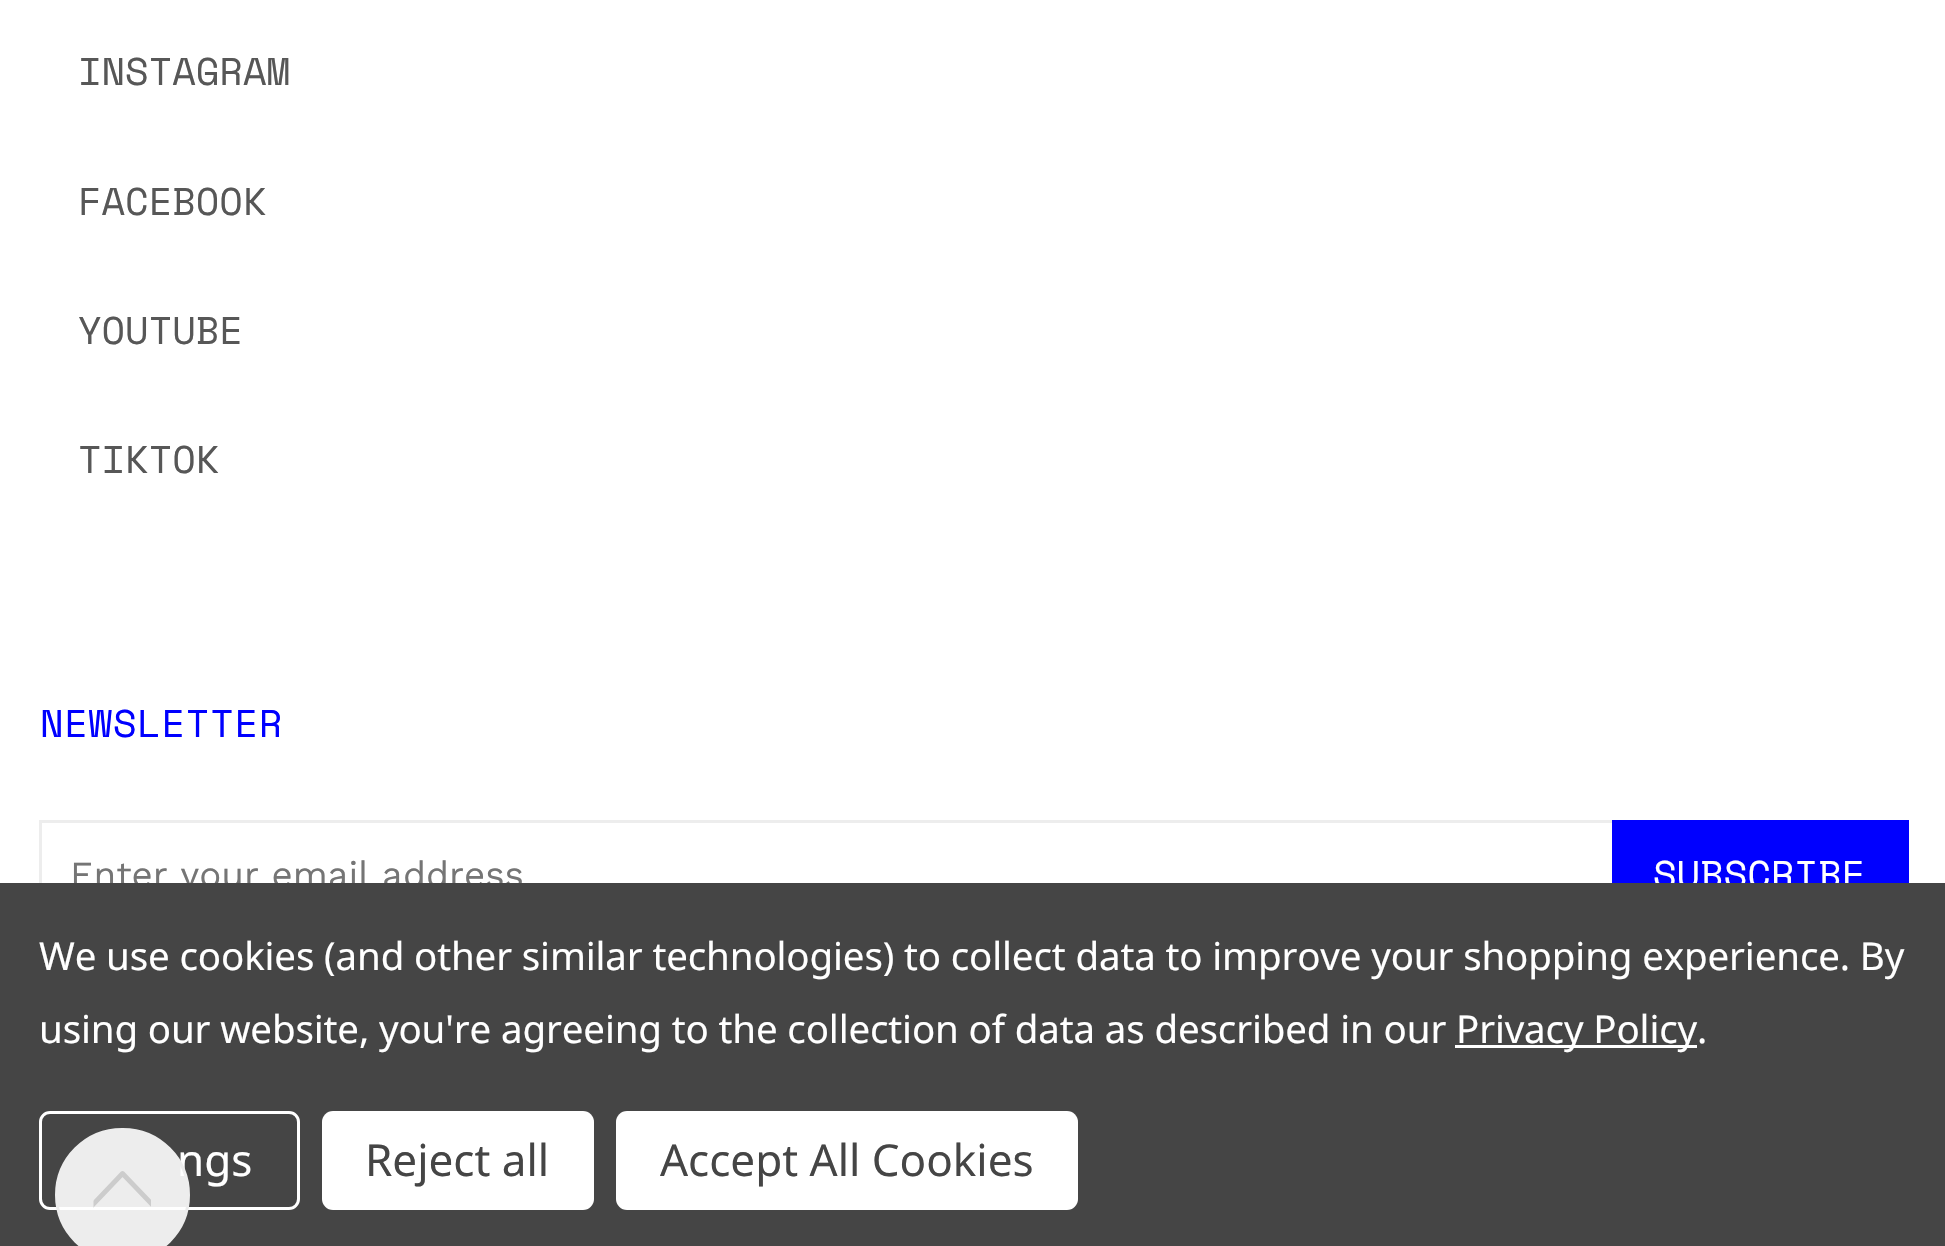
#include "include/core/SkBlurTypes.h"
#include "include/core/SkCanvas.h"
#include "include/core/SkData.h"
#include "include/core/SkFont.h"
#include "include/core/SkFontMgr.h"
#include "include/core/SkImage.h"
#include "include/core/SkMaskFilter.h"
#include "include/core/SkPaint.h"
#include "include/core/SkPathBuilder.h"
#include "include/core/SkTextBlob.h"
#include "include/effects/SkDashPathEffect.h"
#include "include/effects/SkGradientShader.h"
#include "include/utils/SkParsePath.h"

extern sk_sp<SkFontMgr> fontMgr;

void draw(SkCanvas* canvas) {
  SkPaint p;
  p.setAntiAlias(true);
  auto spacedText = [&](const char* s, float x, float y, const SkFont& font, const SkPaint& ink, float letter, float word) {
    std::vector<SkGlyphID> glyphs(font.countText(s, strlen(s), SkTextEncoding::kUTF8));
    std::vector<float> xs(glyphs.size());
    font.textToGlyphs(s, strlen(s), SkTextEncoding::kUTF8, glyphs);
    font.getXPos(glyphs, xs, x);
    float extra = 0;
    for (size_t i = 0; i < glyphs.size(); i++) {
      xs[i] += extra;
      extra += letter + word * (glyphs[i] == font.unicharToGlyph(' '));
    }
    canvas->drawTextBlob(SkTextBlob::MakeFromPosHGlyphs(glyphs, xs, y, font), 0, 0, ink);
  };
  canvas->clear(SK_ColorWHITE);
  p.setColor(SkColorSetRGB(237, 237, 237));
  canvas->drawRect(SkRect::MakeLTRB(39, 820, 1612, 823), p);
  canvas->drawRect(SkRect::MakeLTRB(39, 820, 42, 883), p);
  p.setColor(SkColorSetRGB(0, 0, 255));
  canvas->drawRect(SkRect::MakeLTRB(1612, 820, 1909, 883), p);
  SkFont font1(fontMgr->matchFamilyStyle("Space Mono", SkFontStyle::Normal()), 38.5f);
  font1.setSubpixel(true);
  p.setColor(SkColorSetRGB(87, 87, 87));
  canvas->drawString("INSTAGRAM", 78, 85, font1, p);
  canvas->drawString("FACEBOOK", 78, 215, font1, p);
  canvas->drawString("YOUTUBE", 78, 344, font1, p);
  canvas->drawString("TIKTOK", 78, 473, font1, p);
  p.setColor(SkColorSetRGB(0, 0, 255));
  spacedText("NEWSLETTER", 40, 737, font1, p, 0.75f, 0);
  SkFont font2(fontMgr->matchFamilyStyle("Work Sans", SkFontStyle::Normal()), 36.75f);
  font2.setSubpixel(true);
  p.setColor(SkColorSetRGB(117, 117, 117));
  canvas->drawString("Enter your email address", 70, 887, font2, p);
  p.setColor(SK_ColorWHITE);
  canvas->drawString("SUBSCRIBE", 1653, 888, font1, p);
  p.setColor(SkColorSetRGB(69, 69, 69));
  canvas->drawRect(SkRect::MakeLTRB(0, 883, 1945, 1246), p);
  SkFont font3(fontMgr->matchFamilyStyle("Noto Sans", SkFontStyle::Normal()), 38.5f);
  font3.setSubpixel(true);
  p.setColor(SK_ColorWHITE);
  spacedText("We use cookies (and other similar technologies) to collect data to improve your shopping experience. By", 39, 970, font3, p, -0.14f, 0);
  spacedText("using our website, you're agreeing to the collection of data as described in our", 39, 1043, font3, p, -0.14f, 0);
  canvas->drawRect(SkRect::MakeLTRB(1455, 1045, 1697, 1048), p);
  spacedText("Privacy Policy.", 1456, 1043, font3, p, -0.14f, 0);
  p.setStyle(SkPaint::kStroke_Style);
  p.setStrokeWidth(3);
  canvas->drawRoundRect(SkRect::MakeLTRB(40.5f, 1112.5f, 298.5f, 1208.5f), 9.5f, 9.5f, p);
  SkFont font4(fontMgr->matchFamilyStyle("Noto Sans", SkFontStyle::Normal()), 44);
  font4.setSubpixel(true);
  p.setStyle(SkPaint::kFill_Style);
  canvas->drawString("ngs", 177, 1176, font4, p);
  p.setColor(SkColorSetARGB(230, 255, 255, 255));
  canvas->drawRoundRect(SkRect::MakeLTRB(56.5f, 1129.5f, 188.5f, 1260.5f), 65.5f, 65.5f, p);
  p.setStyle(SkPaint::kStroke_Style);
  p.setColor(SkColorSetRGB(237, 237, 237));
  canvas->drawRoundRect(SkRect::MakeLTRB(56.5f, 1129.5f, 188.5f, 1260.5f), 65.5f, 65.5f, p);
  canvas->save();
  canvas->clipPath(SkPathBuilder().moveTo(151, 1170).lineTo(151, 1228).lineTo(93.5f, 1228).lineTo(93.5f, 1170).close().detach(), true);
  p.setStrokeWidth(4.8f);
  p.setStrokeCap(SkPaint::kRound_Cap);
  p.setStrokeJoin(SkPaint::kRound_Join);
  p.setColor(SkColorSetRGB(204, 204, 204));
  canvas->drawPath(SkPathBuilder().moveTo(171, 1224).lineTo(122.5f, 1173.5f).lineTo(74.5f, 1224).detach(), p);
  canvas->restore();
  p.setStyle(SkPaint::kFill_Style);
  p.setColor(SK_ColorWHITE);
  canvas->drawRoundRect(SkRect::MakeLTRB(322, 1111, 594, 1210), 11, 11, p);
  p.setColor(SkColorSetRGB(69, 69, 69));
  canvas->drawString("Reject all", 365, 1176, font4, p);
  p.setColor(SK_ColorWHITE);
  canvas->drawRoundRect(SkRect::MakeLTRB(616, 1111, 1078, 1210), 11, 11, p);
  p.setColor(SkColorSetRGB(69, 69, 69));
  canvas->drawString("Accept All Cookies", 660, 1176, font4, p);
}
